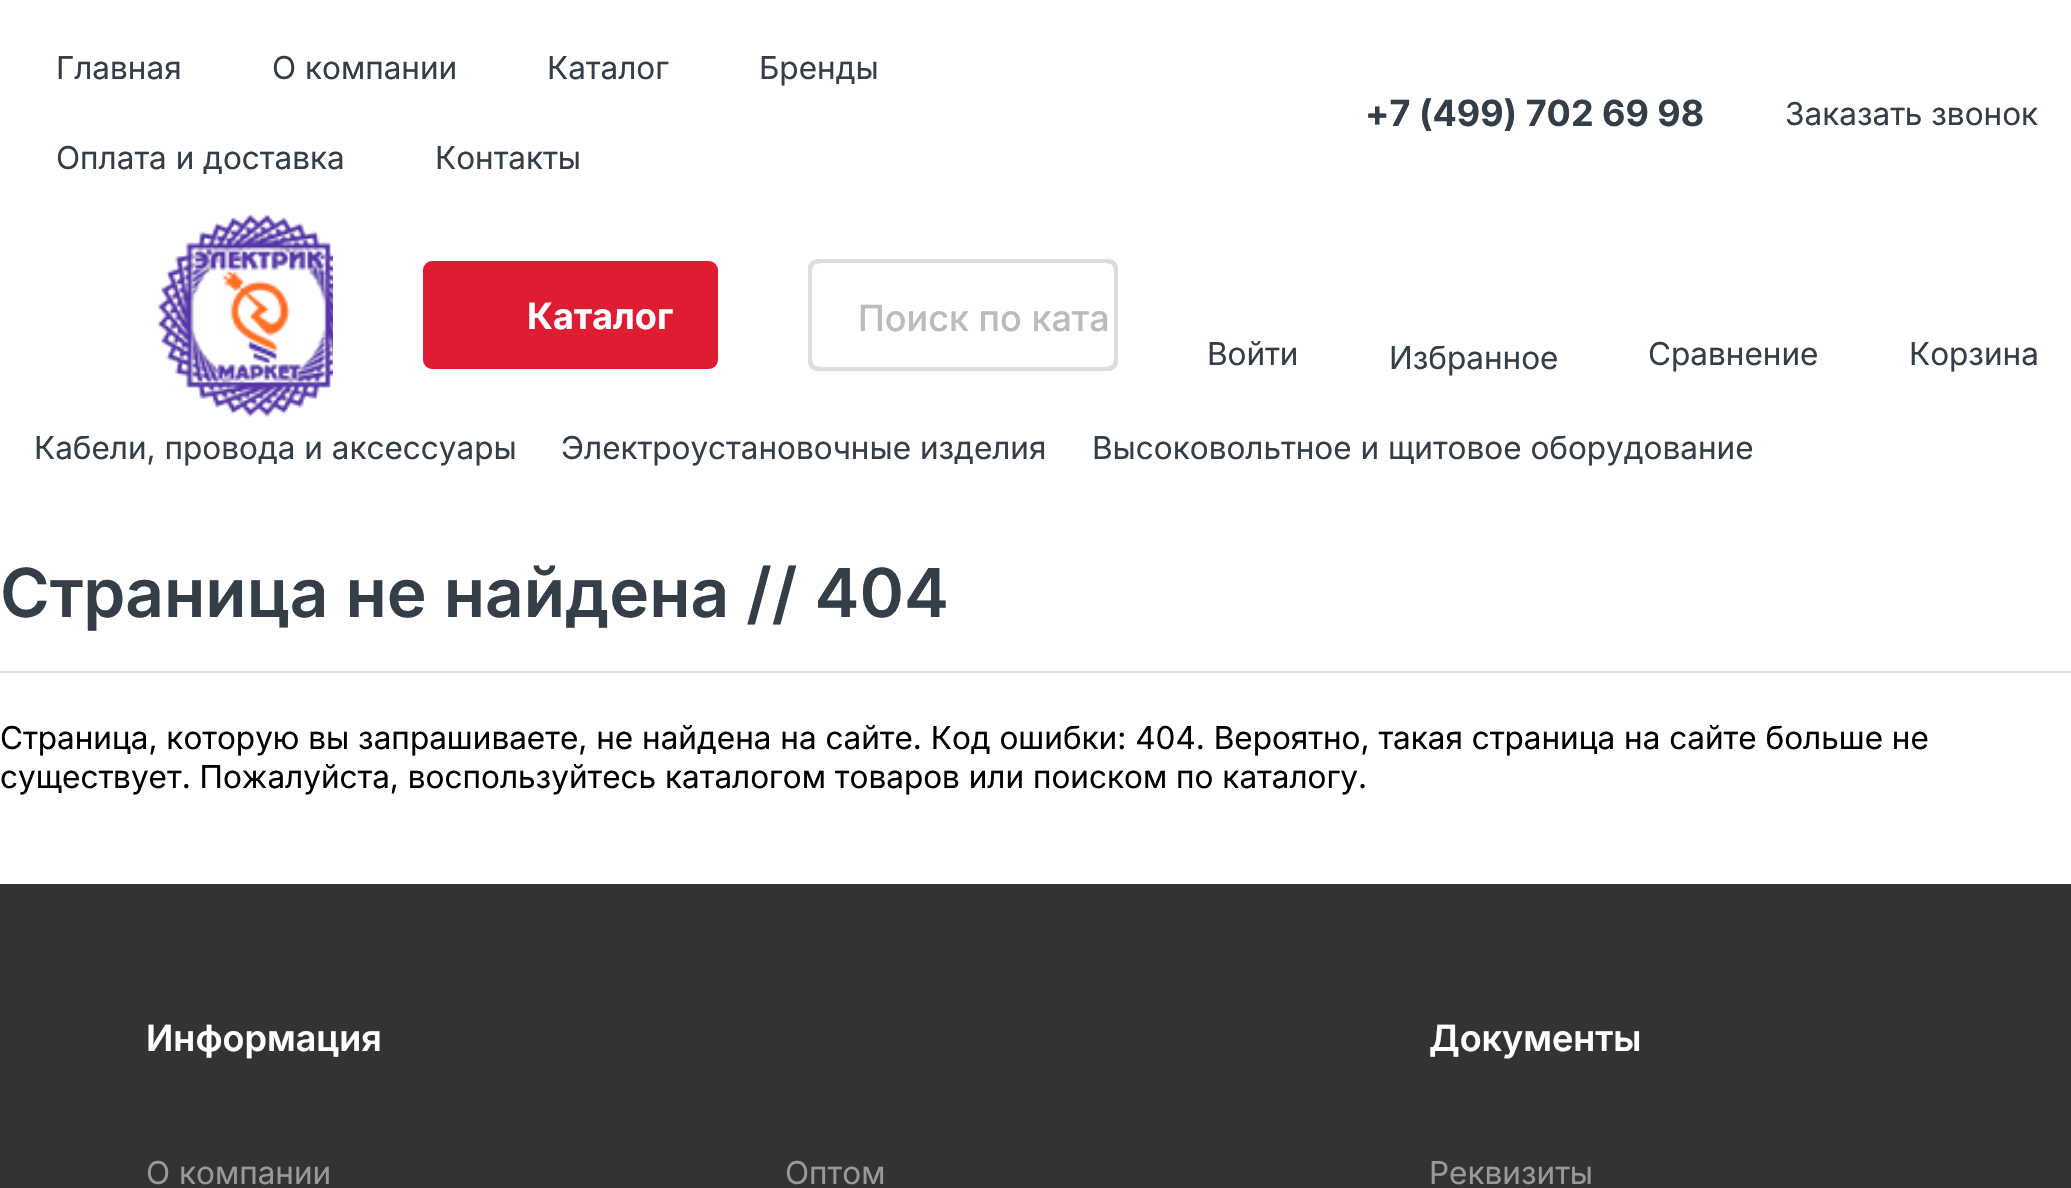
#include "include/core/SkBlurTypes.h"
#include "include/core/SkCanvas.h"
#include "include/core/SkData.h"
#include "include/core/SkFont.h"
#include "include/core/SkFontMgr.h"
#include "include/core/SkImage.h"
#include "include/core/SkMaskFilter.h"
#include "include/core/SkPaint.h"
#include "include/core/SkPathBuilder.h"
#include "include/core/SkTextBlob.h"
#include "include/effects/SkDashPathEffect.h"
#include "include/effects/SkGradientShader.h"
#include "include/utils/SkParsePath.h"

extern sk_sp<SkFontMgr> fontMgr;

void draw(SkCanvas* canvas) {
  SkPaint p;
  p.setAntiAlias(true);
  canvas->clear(SK_ColorWHITE);
  canvas->drawImageRect(SkImages::DeferredFromEncodedData(SkData::MakeFromFileName("images/1.png")), SkRect::MakeLTRB(157, 213, 333, 417), SkSamplingOptions());
  p.setColor(SkColorSetRGB(223, 29, 50));
  canvas->drawRoundRect(SkRect::MakeLTRB(423, 261, 718, 369), 9, 9, p);
  p.setStyle(SkPaint::kStroke_Style);
  p.setStrokeWidth(5);
  p.setColor(SkColorSetRGB(221, 221, 221));
  canvas->drawRoundRect(SkRect::MakeLTRB(810.5f, 261.5f, 1115.5f, 368.5f), 6.5f, 6.5f, p);
  p.setStyle(SkPaint::kFill_Style);
  p.setColor(SK_ColorWHITE);
  canvas->drawRoundRect(SkRect::MakeLTRB(812, 263, 1114, 367), 9, 9, p);
  p.setColor(SkColorSetRGB(221, 221, 221));
  canvas->drawRect(SkRect::MakeLTRB(0, 671, 2071, 673), p);
  p.setColor(SkColorSetRGB(51, 51, 51));
  canvas->drawRect(SkRect::MakeLTRB(0, 884, 2071, 1188), p);
  SkFont font1(fontMgr->matchFamilyStyle("Inter", SkFontStyle::Normal()), 31.5f);
  font1.setSubpixel(true);
  p.setColor(SkColorSetRGB(51, 62, 72));
  canvas->drawString("Главная", 56, 79, font1, p);
  canvas->drawString("О компании", 272, 79, font1, p);
  canvas->drawString("Каталог", 547, 79, font1, p);
  canvas->drawString("Бренды", 759, 79, font1, p);
  canvas->drawString("Оплата и доставка", 56, 169, font1, p);
  canvas->drawString("Контакты", 435, 169, font1, p);
  SkFont font2(fontMgr->matchFamilyStyle("Inter", SkFontStyle::Bold()), 36);
  font2.setSubpixel(true);
  canvas->drawString("+7 (499) 702 69 98", 1365, 126, font2, p);
  canvas->drawString("Заказать звонок", 1785, 125, font1, p);
  p.setColor(SK_ColorWHITE);
  canvas->drawString("Каталог", 527, 329, font2, p);
  SkFont font3(fontMgr->matchFamilyStyle("Inter", SkFontStyle(500, SkFontStyle::kNormal_Width, SkFontStyle::kUpright_Slant)), 36);
  font3.setSubpixel(true);
  p.setColor(SkColorSetRGB(187, 187, 187));
  canvas->drawString("Поиск по ката", 858, 331, font3, p);
  p.setColor(SkColorSetRGB(51, 62, 72));
  canvas->drawString("Войти", 1207, 365, font1, p);
  canvas->drawString("Избранное", 1389, 369, font1, p);
  canvas->drawString("Сравнение", 1648, 365, font1, p);
  canvas->drawString("Корзина", 1909, 365, font1, p);
  canvas->drawString("Кабели, провода и аксессуары", 34, 459, font1, p);
  canvas->drawString("Электроустановочные изделия", 561, 459, font1, p);
  canvas->drawString("Высоковольтное и щитовое оборудование", 1092, 459, font1, p);
  SkFont font4(fontMgr->matchFamilyStyle("Inter", SkFontStyle(600, SkFontStyle::kNormal_Width, SkFontStyle::kUpright_Slant)), 67.5f);
  font4.setSubpixel(true);
  canvas->drawString("Страница не найдена // 404", 0, 617, font4, p);
  p.setColor(SK_ColorBLACK);
  canvas->drawString("Страница, которую вы запрашиваете, не найдена на сайте. Код ошибки: 404. Вероятно, такая страница на сайте больше не", 0, 749, font1, p);
  canvas->drawString("существует. Пожалуйста, воспользуйтесь каталогом товаров или поиском по каталогу.", 0, 788, font1, p);
  SkFont font5(fontMgr->matchFamilyStyle("Inter", SkFontStyle(600, SkFontStyle::kNormal_Width, SkFontStyle::kUpright_Slant)), 36);
  font5.setSubpixel(true);
  p.setColor(SK_ColorWHITE);
  canvas->drawString("Информация", 146, 1051, font5, p);
  p.setColor(SkColorSetRGB(153, 153, 153));
  canvas->drawString("О компании", 146, 1184, font1, p);
  canvas->drawString("Оптом", 785, 1184, font1, p);
  p.setColor(SK_ColorWHITE);
  canvas->drawString("Документы", 1429, 1051, font5, p);
  p.setColor(SkColorSetRGB(153, 153, 153));
  canvas->drawString("Реквизиты", 1429, 1184, font1, p);
}
